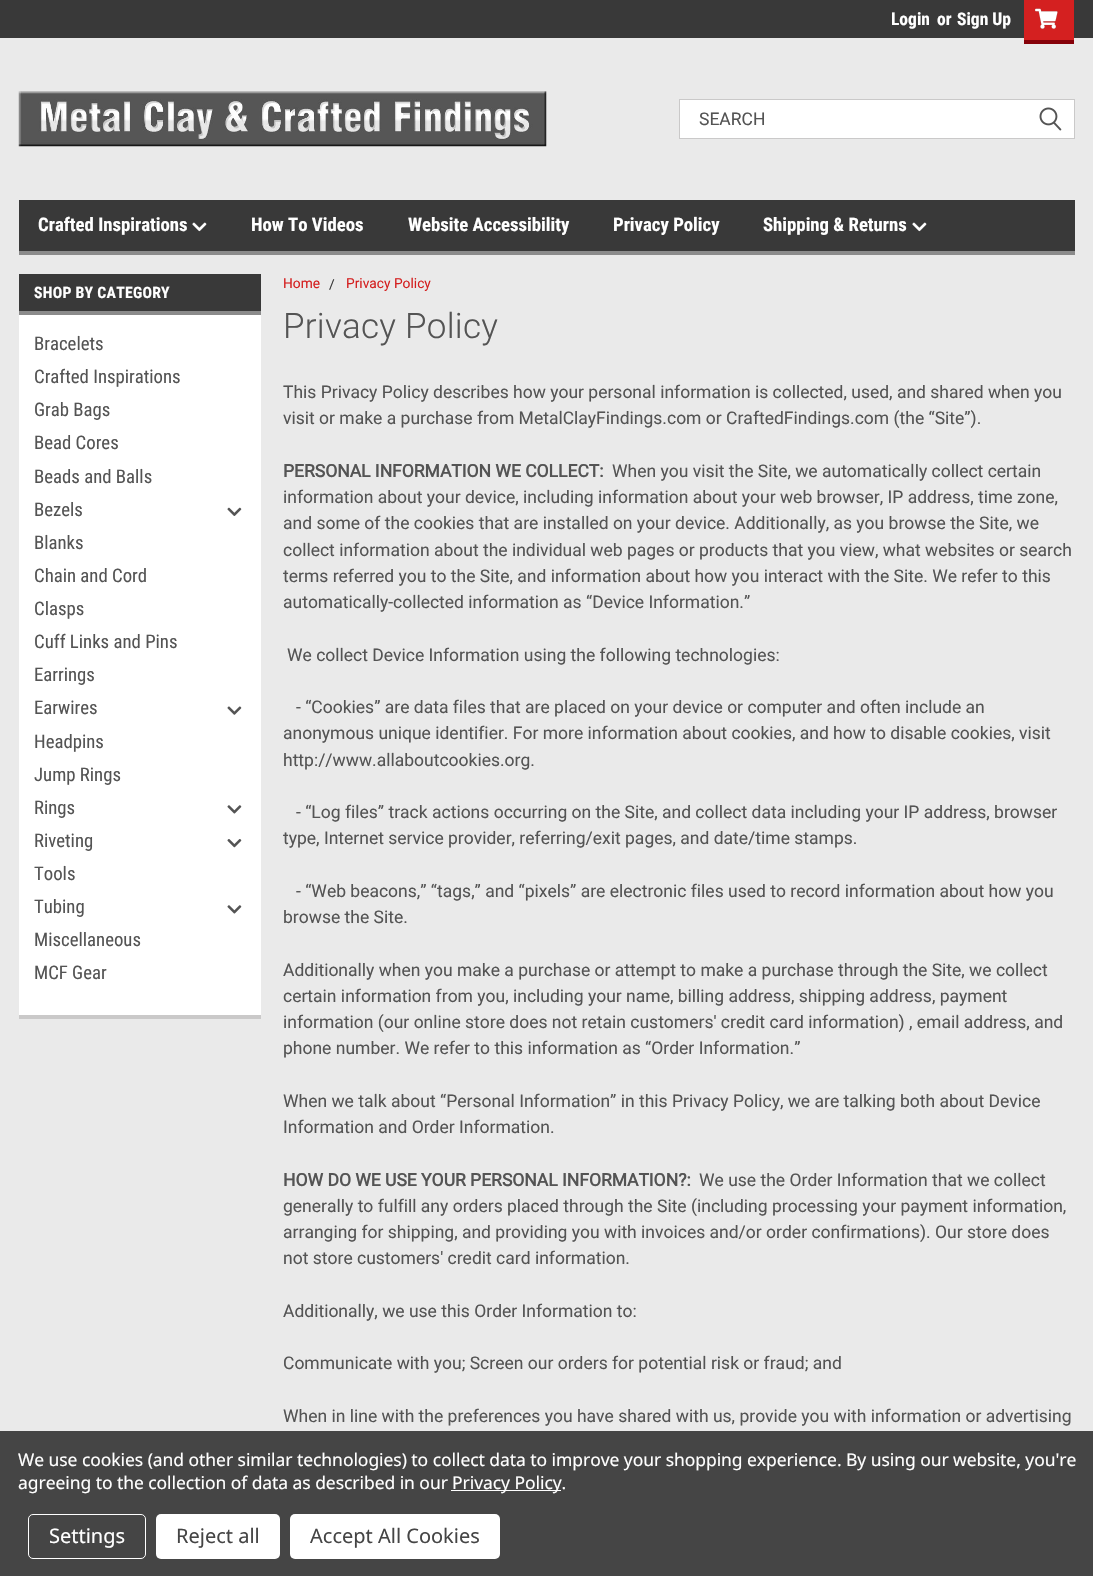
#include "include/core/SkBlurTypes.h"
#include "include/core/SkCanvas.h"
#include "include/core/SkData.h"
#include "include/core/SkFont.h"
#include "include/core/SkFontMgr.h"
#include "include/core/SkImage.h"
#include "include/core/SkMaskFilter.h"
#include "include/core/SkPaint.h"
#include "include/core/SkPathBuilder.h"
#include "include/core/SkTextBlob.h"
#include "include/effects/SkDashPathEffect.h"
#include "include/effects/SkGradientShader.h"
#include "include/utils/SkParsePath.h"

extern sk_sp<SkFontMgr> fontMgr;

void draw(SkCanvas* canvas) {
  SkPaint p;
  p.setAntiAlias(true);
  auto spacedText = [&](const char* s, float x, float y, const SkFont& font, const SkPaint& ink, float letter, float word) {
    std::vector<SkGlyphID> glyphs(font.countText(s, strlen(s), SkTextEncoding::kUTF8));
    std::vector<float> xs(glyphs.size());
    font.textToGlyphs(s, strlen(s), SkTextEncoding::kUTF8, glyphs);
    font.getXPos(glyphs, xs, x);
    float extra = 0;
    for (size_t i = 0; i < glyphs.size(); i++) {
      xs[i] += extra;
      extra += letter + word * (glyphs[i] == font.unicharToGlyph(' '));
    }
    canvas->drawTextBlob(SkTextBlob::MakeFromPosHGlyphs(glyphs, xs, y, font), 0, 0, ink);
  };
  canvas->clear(SkColorSetRGB(234, 234, 234));
  p.setColor(SkColorSetRGB(57, 57, 57));
  canvas->drawRect(SkRect::MakeLTRB(0, 0, 1093, 38), p);
  p.setColor(SkColorSetRGB(212, 32, 32));
  canvas->drawRect(SkRect::MakeLTRB(1024, 0, 1074, 40), p);
  p.setColor(SkColorSetRGB(134, 1, 9));
  canvas->drawRect(SkRect::MakeLTRB(1024, 40, 1074, 44), p);
  canvas->drawImageRect(SkImages::DeferredFromEncodedData(SkData::MakeFromFileName("images/1.png")), SkRect::MakeLTRB(1035, 8, 1058, 29), SkSamplingOptions());
  canvas->drawImageRect(SkImages::DeferredFromEncodedData(SkData::MakeFromFileName("images/2.png")), SkRect::MakeLTRB(18, 91, 547, 147), SkSamplingOptions());
  p.setColor(SK_ColorWHITE);
  canvas->drawRect(SkRect::MakeLTRB(679.5f, 99.5f, 1074.5f, 138.5f), p);
  p.setStyle(SkPaint::kStroke_Style);
  p.setStrokeWidth(1);
  p.setColor(SkColorSetRGB(202, 201, 201));
  canvas->drawRect(SkRect::MakeLTRB(679.5f, 99.5f, 1074.5f, 138.5f), p);
  canvas->drawImageRect(SkImages::DeferredFromEncodedData(SkData::MakeFromFileName("images/3.png")), SkRect::MakeLTRB(1039, 107, 1062, 131), SkSamplingOptions());
  p.setStyle(SkPaint::kFill_Style);
  p.setColor(SkColorSetRGB(57, 57, 57));
  canvas->drawRect(SkRect::MakeLTRB(19, 200, 1075, 251), p);
  p.setColor(SkColorSetRGB(139, 139, 139));
  canvas->drawRect(SkRect::MakeLTRB(19, 251, 1075, 255), p);
  canvas->drawImageRect(SkImages::DeferredFromEncodedData(SkData::MakeFromFileName("images/4.png")), SkRect::MakeLTRB(192, 222, 207, 232), SkSamplingOptions());
  canvas->drawImageRect(SkImages::DeferredFromEncodedData(SkData::MakeFromFileName("images/4.png")), SkRect::MakeLTRB(912, 222, 927, 232), SkSamplingOptions());
  p.setColor(SkColorSetRGB(202, 201, 201));
  canvas->drawRect(SkRect::MakeLTRB(19, 1015, 261, 1019), p);
  p.setColor(SkColorSetRGB(57, 57, 57));
  canvas->drawRect(SkRect::MakeLTRB(19, 274, 261, 311), p);
  p.setColor(SkColorSetRGB(139, 139, 139));
  canvas->drawRect(SkRect::MakeLTRB(19, 311, 261, 315), p);
  p.setColor(SK_ColorWHITE);
  canvas->drawRect(SkRect::MakeLTRB(19, 315, 261, 1015), p);
  canvas->drawImageRect(SkImages::DeferredFromEncodedData(SkData::MakeFromFileName("images/5.png")), SkRect::MakeLTRB(227, 507, 242, 516), SkSamplingOptions());
  canvas->drawImageRect(SkImages::DeferredFromEncodedData(SkData::MakeFromFileName("images/6.png")), SkRect::MakeLTRB(227, 706, 242, 715), SkSamplingOptions());
  canvas->drawImageRect(SkImages::DeferredFromEncodedData(SkData::MakeFromFileName("images/7.png")), SkRect::MakeLTRB(227, 805, 242, 814), SkSamplingOptions());
  canvas->drawImageRect(SkImages::DeferredFromEncodedData(SkData::MakeFromFileName("images/8.png")), SkRect::MakeLTRB(227, 839, 242, 848), SkSamplingOptions());
  canvas->drawImageRect(SkImages::DeferredFromEncodedData(SkData::MakeFromFileName("images/7.png")), SkRect::MakeLTRB(227, 905, 242, 914), SkSamplingOptions());
  p.setColor(SkColorSetRGB(69, 69, 69));
  canvas->drawRect(SkRect::MakeLTRB(0, 1431, 1093, 1576), p);
  p.setColor(SK_ColorWHITE);
  canvas->drawRect(SkRect::MakeLTRB(451, 1490, 561, 1491), p);
  p.setStyle(SkPaint::kStroke_Style);
  canvas->drawRoundRect(SkRect::MakeLTRB(28.5f, 1514.5f, 145.5f, 1558.5f), 4.5f, 4.5f, p);
  p.setStyle(SkPaint::kFill_Style);
  canvas->drawRoundRect(SkRect::MakeLTRB(156, 1514, 280, 1559), 5, 5, p);
  canvas->drawRoundRect(SkRect::MakeLTRB(290, 1514, 500, 1559), 5, 5, p);
  SkFont font1(fontMgr->matchFamilyStyle("Roboto Condensed", SkFontStyle::Bold()), 17.5f);
  font1.setSubpixel(true);
  canvas->drawString("Login", 891, 25, font1, p);
  canvas->drawString("or", 937, 25, font1, p);
  canvas->drawString("Sign Up", 957, 25, font1, p);
  SkFont font2(fontMgr->matchFamilyStyle("Roboto", SkFontStyle::Normal()), 17.5f);
  font2.setSubpixel(true);
  p.setColor(SkColorSetRGB(84, 84, 84));
  canvas->drawString("SEARCH", 699, 125, font2, p);
  SkFont font3(fontMgr->matchFamilyStyle("Roboto Condensed", SkFontStyle::Bold()), 18.75f);
  font3.setSubpixel(true);
  p.setColor(SK_ColorWHITE);
  canvas->drawString("Crafted Inspirations", 38, 231, font3, p);
  canvas->drawString("How To Videos", 251, 231, font3, p);
  canvas->drawString("Website Accessibility", 408, 231, font3, p);
  canvas->drawString("Privacy Policy", 613, 231, font3, p);
  canvas->drawString("Shipping & Returns", 763, 231, font3, p);
  SkFont font4(fontMgr->matchFamilyStyle("Roboto Condensed", SkFontStyle::Bold()), 15.75f);
  font4.setSubpixel(true);
  spacedText("SHOP BY CATEGORY", 34, 298, font4, p, 0.25f, 0);
  SkFont font5(fontMgr->matchFamilyStyle("Roboto Condensed", SkFontStyle::Normal()), 18.75f);
  font5.setSubpixel(true);
  p.setColor(SkColorSetRGB(84, 84, 84));
  canvas->drawString("Bracelets", 34, 350, font5, p);
  canvas->drawString("Crafted Inspirations", 34, 383, font5, p);
  canvas->drawString("Grab Bags", 34, 416, font5, p);
  canvas->drawString("Bead Cores", 34, 449, font5, p);
  canvas->drawString("Beads and Balls", 34, 483, font5, p);
  canvas->drawString("Bezels", 34, 516, font5, p);
  canvas->drawString("Blanks", 34, 549, font5, p);
  canvas->drawString("Chain and Cord", 34, 582, font5, p);
  canvas->drawString("Clasps", 34, 615, font5, p);
  canvas->drawString("Cuff Links and Pins", 34, 648, font5, p);
  canvas->drawString("Earrings", 34, 681, font5, p);
  canvas->drawString("Earwires", 34, 714, font5, p);
  canvas->drawString("Headpins", 34, 748, font5, p);
  canvas->drawString("Jump Rings", 34, 781, font5, p);
  canvas->drawString("Rings", 34, 814, font5, p);
  canvas->drawString("Riveting", 34, 847, font5, p);
  canvas->drawString("Tools", 34, 880, font5, p);
  canvas->drawString("Tubing", 34, 913, font5, p);
  canvas->drawString("Miscellaneous", 34, 946, font5, p);
  canvas->drawString("MCF Gear", 34, 979, font5, p);
  SkFont font6(fontMgr->matchFamilyStyle("Roboto", SkFontStyle::Normal()), 13.75f);
  font6.setSubpixel(true);
  p.setColor(SkColorSetRGB(212, 32, 32));
  canvas->drawString("Home", 283, 288, font6, p);
  p.setColor(SkColorSetRGB(57, 57, 57));
  canvas->drawString("/", 329, 289, font6, p);
  p.setColor(SkColorSetRGB(212, 32, 32));
  canvas->drawString("Privacy Policy", 346, 288, font6, p);
  SkFont font7(fontMgr->matchFamilyStyle("Roboto", SkFontStyle(300, SkFontStyle::kNormal_Width, SkFontStyle::kUpright_Slant)), 35);
  font7.setSubpixel(true);
  p.setColor(SkColorSetRGB(84, 84, 84));
  spacedText("Privacy Policy", 283, 338, font7, p, 0.25f, 0);
  canvas->drawString("This Privacy Policy describes how your personal information is collected, used, and shared when you", 283, 398, font2, p);
  canvas->drawString("visit or make a purchase from MetalClayFindings.com or CraftedFindings.com (the “Site”).", 283, 424, font2, p);
  SkFont font8(fontMgr->matchFamilyStyle("Roboto", SkFontStyle::Bold()), 17.5f);
  font8.setSubpixel(true);
  canvas->drawString("PERSONAL INFORMATION WE COLLECT:", 283, 477, font8, p);
  canvas->drawString("When you visit the Site, we automatically collect certain", 612, 477, font2, p);
  canvas->drawString("information about your device, including information about your web browser, IP address, time zone,", 283, 503, font2, p);
  canvas->drawString("and some of the cookies that are installed on your device. Additionally, as you browse the Site, we", 283, 529, font2, p);
  canvas->drawString("collect information about the individual web pages or products that you view, what websites or search", 283, 556, font2, p);
  canvas->drawString("terms referred you to the Site, and information about how you interact with the Site. We refer to this", 283, 582, font2, p);
  canvas->drawString("automatically-collected information as “Device Information.”", 283, 608, font2, p);
  canvas->drawString("We collect Device Information using the following technologies:", 287, 661, font2, p);
  canvas->drawString("- “Cookies” are data files that are placed on your device or computer and often include an", 296, 713, font2, p);
  canvas->drawString("anonymous unique identifier. For more information about cookies, and how to disable cookies, visit", 283, 739, font2, p);
  canvas->drawString("http://www.allaboutcookies.org.", 283, 766, font2, p);
  canvas->drawString("- “Log files” track actions occurring on the Site, and collect data including your IP address, browser", 296, 818, font2, p);
  canvas->drawString("type, Internet service provider, referring/exit pages, and date/time stamps.", 283, 844, font2, p);
  canvas->drawString("- “Web beacons,” “tags,” and “pixels” are electronic files used to record information about how you", 296, 897, font2, p);
  canvas->drawString("browse the Site.", 283, 923, font2, p);
  canvas->drawString("Additionally when you make a purchase or attempt to make a purchase through the Site, we collect", 283, 976, font2, p);
  canvas->drawString("certain information from you, including your name, billing address, shipping address, payment", 283, 1002, font2, p);
  canvas->drawString("information (our online store does not retain customers' credit card information) , email address, and", 283, 1028, font2, p);
  canvas->drawString("phone number. We refer to this information as “Order Information.”", 283, 1054, font2, p);
  canvas->drawString("When we talk about “Personal Information” in this Privacy Policy, we are talking both about Device", 283, 1107, font2, p);
  canvas->drawString("Information and Order Information.", 283, 1133, font2, p);
  canvas->drawString("HOW DO WE USE YOUR PERSONAL INFORMATION?:", 283, 1186, font8, p);
  canvas->drawString("We use the Order Information that we collect", 699, 1186, font2, p);
  canvas->drawString("generally to fulfill any orders placed through the Site (including processing your payment information,", 283, 1212, font2, p);
  canvas->drawString("arranging for shipping, and providing you with invoices and/or order confirmations). Our store does", 283, 1238, font2, p);
  canvas->drawString("not store customers' credit card information.", 283, 1264, font2, p);
  canvas->drawString("Additionally, we use this Order Information to:", 283, 1317, font2, p);
  canvas->drawString("Communicate with you; Screen our orders for potential risk or fraud; and", 283, 1369, font2, p);
  canvas->drawString("When in line with the preferences you have shared with us, provide you with information or advertising", 283, 1422, font2, p);
  SkFont font9(fontMgr->matchFamilyStyle("Noto Sans", SkFontStyle::Normal()), 17.5f);
  font9.setSubpixel(true);
  p.setColor(SK_ColorWHITE);
  spacedText("We use cookies (and other similar technologies) to collect data to improve your shopping experience. By using our website, you're", 18, 1466, font9, p, -0.06f, 0);
  spacedText("agreeing to the collection of data as described in our", 18, 1489, font9, p, -0.06f, 0);
  spacedText("Privacy Policy.", 452, 1489, font9, p, -0.06f, 0);
  SkFont font10(fontMgr->matchFamilyStyle("Noto Sans", SkFontStyle::Normal()), 20);
  font10.setSubpixel(true);
  canvas->drawString("Settings", 49, 1543, font10, p);
  p.setColor(SkColorSetRGB(69, 69, 69));
  canvas->drawString("Reject all", 176, 1543, font10, p);
  canvas->drawString("Accept All Cookies", 310, 1543, font10, p);
}
